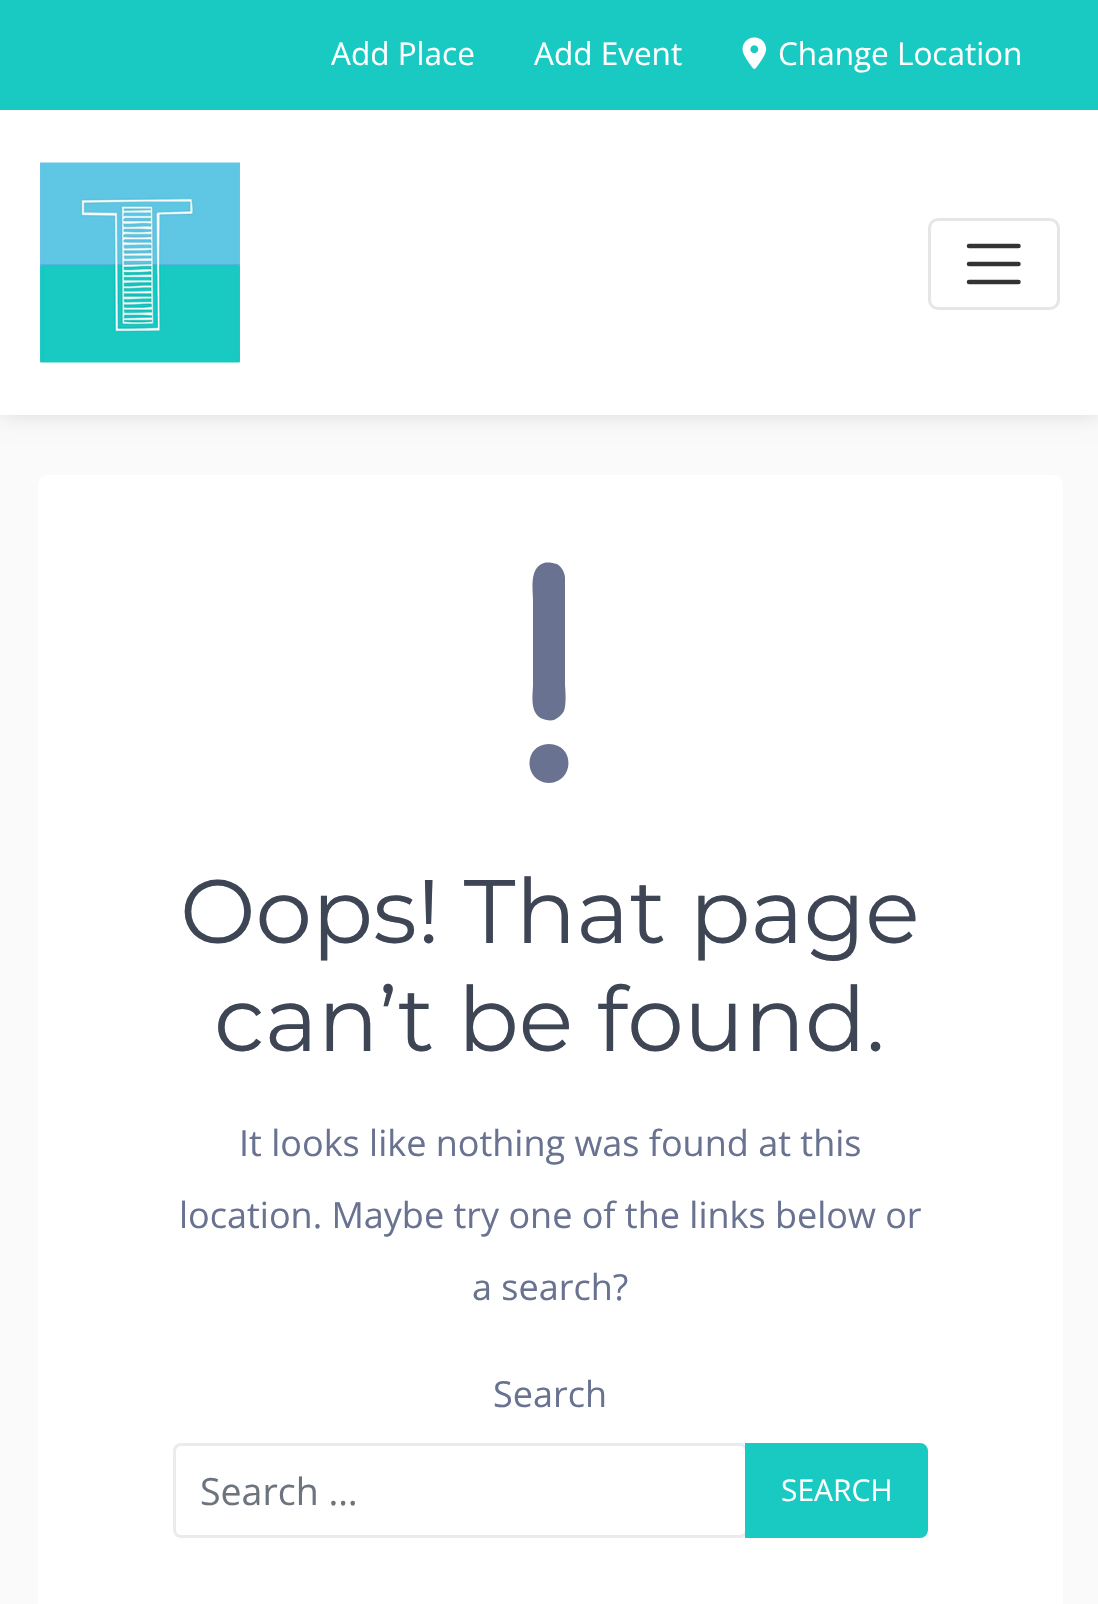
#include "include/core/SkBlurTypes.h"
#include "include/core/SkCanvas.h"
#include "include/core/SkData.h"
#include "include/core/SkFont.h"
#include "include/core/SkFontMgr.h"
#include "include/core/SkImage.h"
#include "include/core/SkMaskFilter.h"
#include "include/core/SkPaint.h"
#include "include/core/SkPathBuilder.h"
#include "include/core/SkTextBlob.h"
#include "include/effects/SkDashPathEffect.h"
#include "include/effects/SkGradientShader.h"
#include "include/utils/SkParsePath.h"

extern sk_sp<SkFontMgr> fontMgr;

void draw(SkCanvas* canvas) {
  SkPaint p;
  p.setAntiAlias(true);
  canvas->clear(SkColorSetRGB(250, 250, 250));
  p.setColor(SkColorSetARGB(31, 0, 0, 0));
  p.setMaskFilter(SkMaskFilter::MakeBlur(kNormal_SkBlurStyle, 10));
  canvas->drawRect(SkRect::MakeLTRB(0, 110, 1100, 415), p);
  p.setMaskFilter(nullptr);
  p.setColor(SkColorSetRGB(24, 202, 194));
  canvas->drawRect(SkRect::MakeLTRB(0, 0, 1098, 110), p);
  canvas->drawImageRect(SkImages::DeferredFromEncodedData(SkData::MakeFromFileName("images/1.png")), SkRect::MakeLTRB(742, 37, 767, 69), SkSamplingOptions());
  p.setColor(SK_ColorWHITE);
  canvas->drawRect(SkRect::MakeLTRB(0, 110, 1098, 415), p);
  canvas->drawImageRect(SkImages::DeferredFromEncodedData(SkData::MakeFromFileName("images/2.png")), SkRect::MakeLTRB(40, 162, 240, 363), SkSamplingOptions());
  p.setStyle(SkPaint::kStroke_Style);
  p.setStrokeWidth(3);
  p.setColor(SkColorSetRGB(230, 230, 230));
  canvas->drawRoundRect(SkRect::MakeLTRB(929.5f, 219.5f, 1058.5f, 308.5f), 8.5f, 8.5f, p);
  p.setStrokeWidth(4.5f);
  p.setStrokeCap(SkPaint::kRound_Cap);
  p.setColor(SkColorSetRGB(51, 51, 51));
  canvas->drawPath(SkPathBuilder().moveTo(969, 246).lineTo(1018.5f, 246).moveTo(969, 264).lineTo(1018.5f, 264).moveTo(969, 282).lineTo(1018.5f, 282).detach(), p);
  p.setStyle(SkPaint::kFill_Style);
  p.setColor(SK_ColorWHITE);
  canvas->drawRoundRect(SkRect::MakeLTRB(38, 475, 1063, 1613), 10, 10, p);
  p.setColor(SkColorSetRGB(105, 115, 145));
  canvas->drawPath(SkPathBuilder().moveTo(565, 578).cubicTo(565, 573, 562, 567, 557, 564).cubicTo(553, 563, 548, 562, 544, 563).cubicTo(529, 568, 533, 589, 533, 600).lineTo(533, 684).cubicTo(533, 694, 529, 714, 543, 719).cubicTo(546, 720, 550, 721, 554, 720).cubicTo(558, 718, 562, 715, 564, 711).cubicTo(567, 703, 565, 687, 565, 684).close().moveTo(549, 783).cubicTo(575, 782, 575, 744, 549, 744).cubicTo(523, 744, 523, 782, 549, 783).close().detach(), p);
  p.setStyle(SkPaint::kStroke_Style);
  p.setStrokeWidth(3);
  p.setStrokeCap(SkPaint::kButt_Cap);
  p.setColor(SkColorSetRGB(233, 236, 239));
  canvas->drawRoundRect(SkRect::MakeLTRB(174.5f, 1444.5f, 746.5f, 1536.5f), 6.5f, 6.5f, p);
  p.setStyle(SkPaint::kFill_Style);
  p.setColor(SkColorSetRGB(24, 202, 194));
  canvas->drawPath(SkPathBuilder().moveTo(747.5f, 1445.5f).lineTo(920, 1445.5f).cubicTo(923, 1445.5f, 925.5f, 1448, 925.5f, 1451).lineTo(925.5f, 1530).cubicTo(925.5f, 1533, 923, 1535.5f, 920, 1535.5f).lineTo(747.5f, 1535.5f).close().detach(), p);
  p.setStyle(SkPaint::kStroke_Style);
  p.setStrokeWidth(5);
  canvas->drawPath(SkPathBuilder().moveTo(747.5f, 1445.5f).lineTo(920, 1445.5f).cubicTo(923, 1445.5f, 925.5f, 1448, 925.5f, 1451).lineTo(925.5f, 1530).cubicTo(925.5f, 1533, 923, 1535.5f, 920, 1535.5f).lineTo(747.5f, 1535.5f).close().detach(), p);
  SkFont font1(fontMgr->matchFamilyStyle("Open Sans", SkFontStyle::Normal()), 31.5f);
  font1.setSubpixel(true);
  p.setStyle(SkPaint::kFill_Style);
  p.setColor(SK_ColorWHITE);
  canvas->drawString("Add Place", 331, 65, font1, p);
  canvas->drawString("Add Event", 534, 65, font1, p);
  canvas->drawString("Change Location", 778, 65, font1, p);
  SkFont font2(fontMgr->matchFamilyStyle("Montserrat", SkFontStyle::Normal()), 90);
  font2.setSubpixel(true);
  p.setColor(SkColorSetRGB(62, 69, 85));
  canvas->drawString("Oops! That page", 180, 943, font2, p);
  canvas->drawString("can’t be found.", 214, 1051, font2, p);
  SkFont font3(fontMgr->matchFamilyStyle("Open Sans", SkFontStyle::Normal()), 36);
  font3.setSubpixel(true);
  p.setColor(SkColorSetRGB(105, 115, 145));
  canvas->drawString("It looks like nothing was found at this", 239, 1156, font3, p);
  canvas->drawString("location. Maybe try one of the links below or", 179, 1228, font3, p);
  canvas->drawString("a search?", 472, 1300, font3, p);
  canvas->drawString("Search", 493, 1407, font3, p);
  SkFont font4(fontMgr->matchFamilyStyle("Open Sans", SkFontStyle::Normal()), 37.5f);
  font4.setSubpixel(true);
  p.setColor(SkColorSetRGB(108, 117, 125));
  canvas->drawString("Search …", 200, 1505, font4, p);
  SkFont font5(fontMgr->matchFamilyStyle("Open Sans", SkFontStyle::Normal()), 30);
  font5.setSubpixel(true);
  p.setColor(SK_ColorWHITE);
  canvas->drawString("SEARCH", 781, 1501, font5, p);
}
